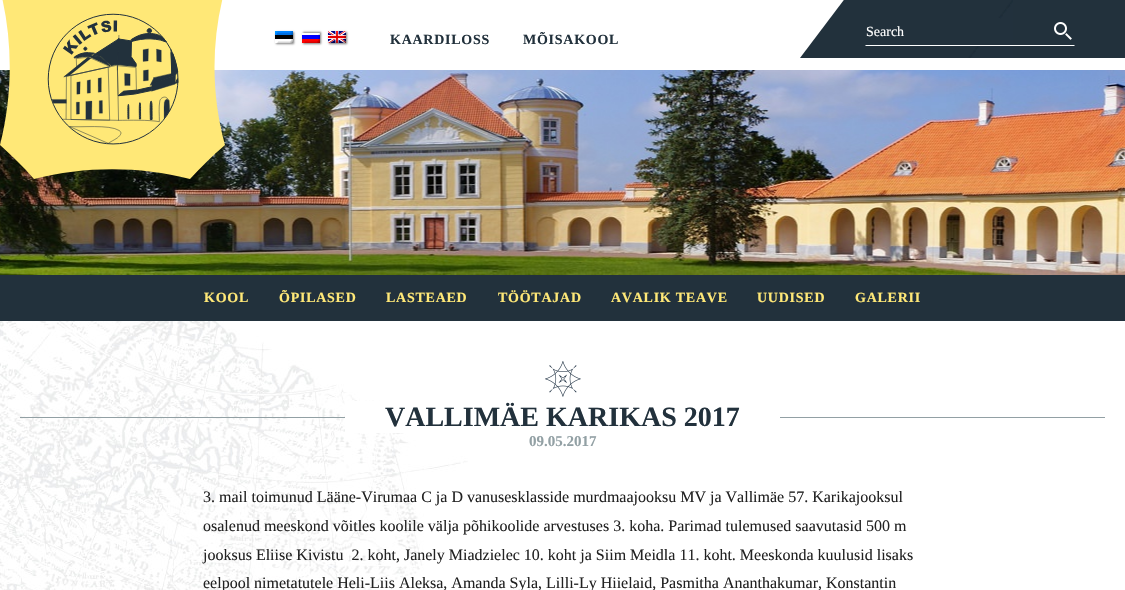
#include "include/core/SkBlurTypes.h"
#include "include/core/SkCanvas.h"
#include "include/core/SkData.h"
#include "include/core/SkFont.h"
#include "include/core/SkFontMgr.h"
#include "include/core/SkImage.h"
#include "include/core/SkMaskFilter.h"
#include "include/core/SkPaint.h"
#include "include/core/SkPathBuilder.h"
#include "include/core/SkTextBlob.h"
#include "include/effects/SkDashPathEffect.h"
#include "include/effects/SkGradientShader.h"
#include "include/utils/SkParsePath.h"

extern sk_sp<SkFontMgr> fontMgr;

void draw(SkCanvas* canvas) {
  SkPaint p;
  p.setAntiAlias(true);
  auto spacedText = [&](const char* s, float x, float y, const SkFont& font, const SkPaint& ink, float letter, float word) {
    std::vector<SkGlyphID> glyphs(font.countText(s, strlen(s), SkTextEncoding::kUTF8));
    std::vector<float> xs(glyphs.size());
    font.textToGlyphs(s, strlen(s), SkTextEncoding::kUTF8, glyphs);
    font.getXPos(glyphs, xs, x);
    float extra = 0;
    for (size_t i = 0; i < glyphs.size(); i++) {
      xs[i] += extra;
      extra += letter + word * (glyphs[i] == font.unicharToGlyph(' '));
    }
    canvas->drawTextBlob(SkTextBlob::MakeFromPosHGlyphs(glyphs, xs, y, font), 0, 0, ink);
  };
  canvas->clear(SK_ColorWHITE);
  canvas->drawImageRect(SkImages::DeferredFromEncodedData(SkData::MakeFromFileName("images/1.png")), SkRect::MakeLTRB(0, 321, 468, 590), SkSamplingOptions());
  p.setColor(SkColorSetRGB(34, 49, 60));
  canvas->drawRect(SkRect::MakeLTRB(1013, 0, 1125, 58), p);
  canvas->drawImageRect(SkImages::DeferredFromEncodedData(SkData::MakeFromFileName("images/8.png")), SkRect::MakeLTRB(0, 70, 1125, 275), SkSamplingOptions());
  p.setColor(SkColorSetRGB(255, 232, 119));
  canvas->drawPath(SkPathBuilder(SkPathFillType::kEvenOdd).moveTo(0, 145).cubicTo(12, 156, 24, 167, 34, 179).cubicTo(85, 166, 139, 166, 190, 179).cubicTo(201, 167, 212, 156, 225, 145).cubicTo(211, 94, 211, 40, 225, -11).cubicTo(212, -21, 201, -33, 190, -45).cubicTo(139, -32, 85, -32, 34, -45).cubicTo(24, -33, 12, -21, 0, -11).cubicTo(13, 40, 13, 94, 0, 145).detach(), p);
  canvas->drawImageRect(SkImages::DeferredFromEncodedData(SkData::MakeFromFileName("images/2.png")), SkRect::MakeLTRB(47, 13, 179, 145), SkSamplingOptions());
  p.setColor(SkColorSetARGB(128, 0, 0, 0));
  p.setMaskFilter(SkMaskFilter::MakeBlur(kNormal_SkBlurStyle, 1));
  canvas->drawRect(SkRect::MakeLTRB(276, 32, 294, 44), p);
  p.setMaskFilter(nullptr);
  canvas->drawImageRect(SkImages::DeferredFromEncodedData(SkData::MakeFromFileName("images/3.png")), SkRect::MakeLTRB(275, 31, 293, 43), SkSamplingOptions());
  p.setMaskFilter(SkMaskFilter::MakeBlur(kNormal_SkBlurStyle, 1));
  canvas->drawRect(SkRect::MakeLTRB(303, 32, 321, 44), p);
  p.setMaskFilter(nullptr);
  canvas->drawImageRect(SkImages::DeferredFromEncodedData(SkData::MakeFromFileName("images/4.png")), SkRect::MakeLTRB(302, 33, 320, 43), SkSamplingOptions());
  p.setMaskFilter(SkMaskFilter::MakeBlur(kNormal_SkBlurStyle, 1));
  canvas->drawRect(SkRect::MakeLTRB(329, 32, 347, 44), p);
  p.setMaskFilter(nullptr);
  canvas->drawImageRect(SkImages::DeferredFromEncodedData(SkData::MakeFromFileName("images/5.png")), SkRect::MakeLTRB(328, 31, 346, 43), SkSamplingOptions());
  canvas->drawImageRect(SkImages::DeferredFromEncodedData(SkData::MakeFromFileName("images/6.png")), SkRect::MakeLTRB(800, 0, 1013, 58), SkSamplingOptions());
  p.setColor(SkColorSetRGB(34, 49, 60));
  canvas->drawRect(SkRect::MakeLTRB(978, 18, 1000, 46), p);
  p.setColor(SK_ColorWHITE);
  canvas->drawPath(SkPathBuilder().moveTo(1075, 46).lineTo(865, 46).lineTo(866, 45).lineTo(1074, 45).close().detach(), p);
  canvas->drawImageRect(SkImages::DeferredFromEncodedData(SkData::MakeFromFileName("images/7.png")), SkRect::MakeLTRB(1054, 22, 1072, 40), SkSamplingOptions());
  p.setColor(SkColorSetRGB(34, 49, 60));
  canvas->drawRect(SkRect::MakeLTRB(0, 275, 1125, 321), p);
  p.setColor(SkColorSetRGB(146, 160, 164));
  canvas->drawRect(SkRect::MakeLTRB(20, 417, 1105, 418), p);
  p.setColor(SK_ColorWHITE);
  canvas->drawRect(SkRect::MakeLTRB(345, 401, 780, 433), p);
  canvas->drawImageRect(SkImages::DeferredFromEncodedData(SkData::MakeFromFileName("images/9.png")), SkRect::MakeLTRB(545, 361, 581, 397), SkSamplingOptions());
  SkFont font1(fontMgr->matchFamilyStyle("Liberation Serif", SkFontStyle::Bold()), 14);
  font1.setSubpixel(true);
  p.setColor(SkColorSetRGB(34, 49, 60));
  spacedText("KAARDILOSS", 390, 44, font1, p, 0.75f, 0);
  spacedText("MÕISAKOOL", 523, 44, font1, p, 0.75f, 0);
  SkFont font2(fontMgr->matchFamilyStyle("Liberation Serif", SkFontStyle::Normal()), 14);
  font2.setSubpixel(true);
  p.setColor(SK_ColorWHITE);
  canvas->drawString("Search", 866, 36, font2, p);
  p.setColor(SkColorSetRGB(255, 232, 119));
  spacedText("KOOL", 204, 302, font1, p, 0.75f, 0);
  spacedText("ÕPILASED", 279, 302, font1, p, 0.75f, 0);
  spacedText("LASTEAED", 386, 302, font1, p, 0.75f, 0);
  spacedText("TÖÖTAJAD", 498, 302, font1, p, 0.75f, 0);
  spacedText("AVALIK TEAVE", 611, 302, font1, p, 0.75f, 0);
  spacedText("UUDISED", 757, 302, font1, p, 0.75f, 0);
  spacedText("GALERII", 855, 302, font1, p, 0.75f, 0);
  SkFont font3(fontMgr->matchFamilyStyle("Liberation Serif", SkFontStyle::Bold()), 28);
  font3.setSubpixel(true);
  p.setColor(SkColorSetRGB(34, 49, 60));
  canvas->drawString("VALLIMÄE KARIKAS 2017", 385, 426, font3, p);
  SkFont font4(fontMgr->matchFamilyStyle("Liberation Serif", SkFontStyle::Bold()), 15);
  font4.setSubpixel(true);
  p.setColor(SkColorSetRGB(146, 160, 164));
  canvas->drawString("09.05.2017", 529, 446, font4, p);
  SkFont font5(fontMgr->matchFamilyStyle("Liberation Serif", SkFontStyle::Normal()), 16);
  font5.setSubpixel(true);
  p.setColor(SkColorSetRGB(34, 34, 34));
  canvas->drawString("3. mail toimunud Lääne-Virumaa C ja D vanusesklasside murdmaajooksu MV ja Vallimäe 57. Karikajooksul", 203, 502, font5, p);
  canvas->drawString("osalenud meeskond võitles koolile välja põhikoolide arvestuses 3. koha. Parimad tulemused saavutasid 500 m", 203, 531, font5, p);
  canvas->drawString("jooksus Eliise Kivistu  2. koht, Janely Miadzielec 10. koht ja Siim Meidla 11. koht. Meeskonda kuulusid lisaks", 203, 560, font5, p);
  canvas->drawString("eelpool nimetatutele Heli-Liis Aleksa, Amanda Syla, Lilli-Ly Hiielaid, Pasmitha Ananthakumar, Konstantin", 203, 588, font5, p);
}
